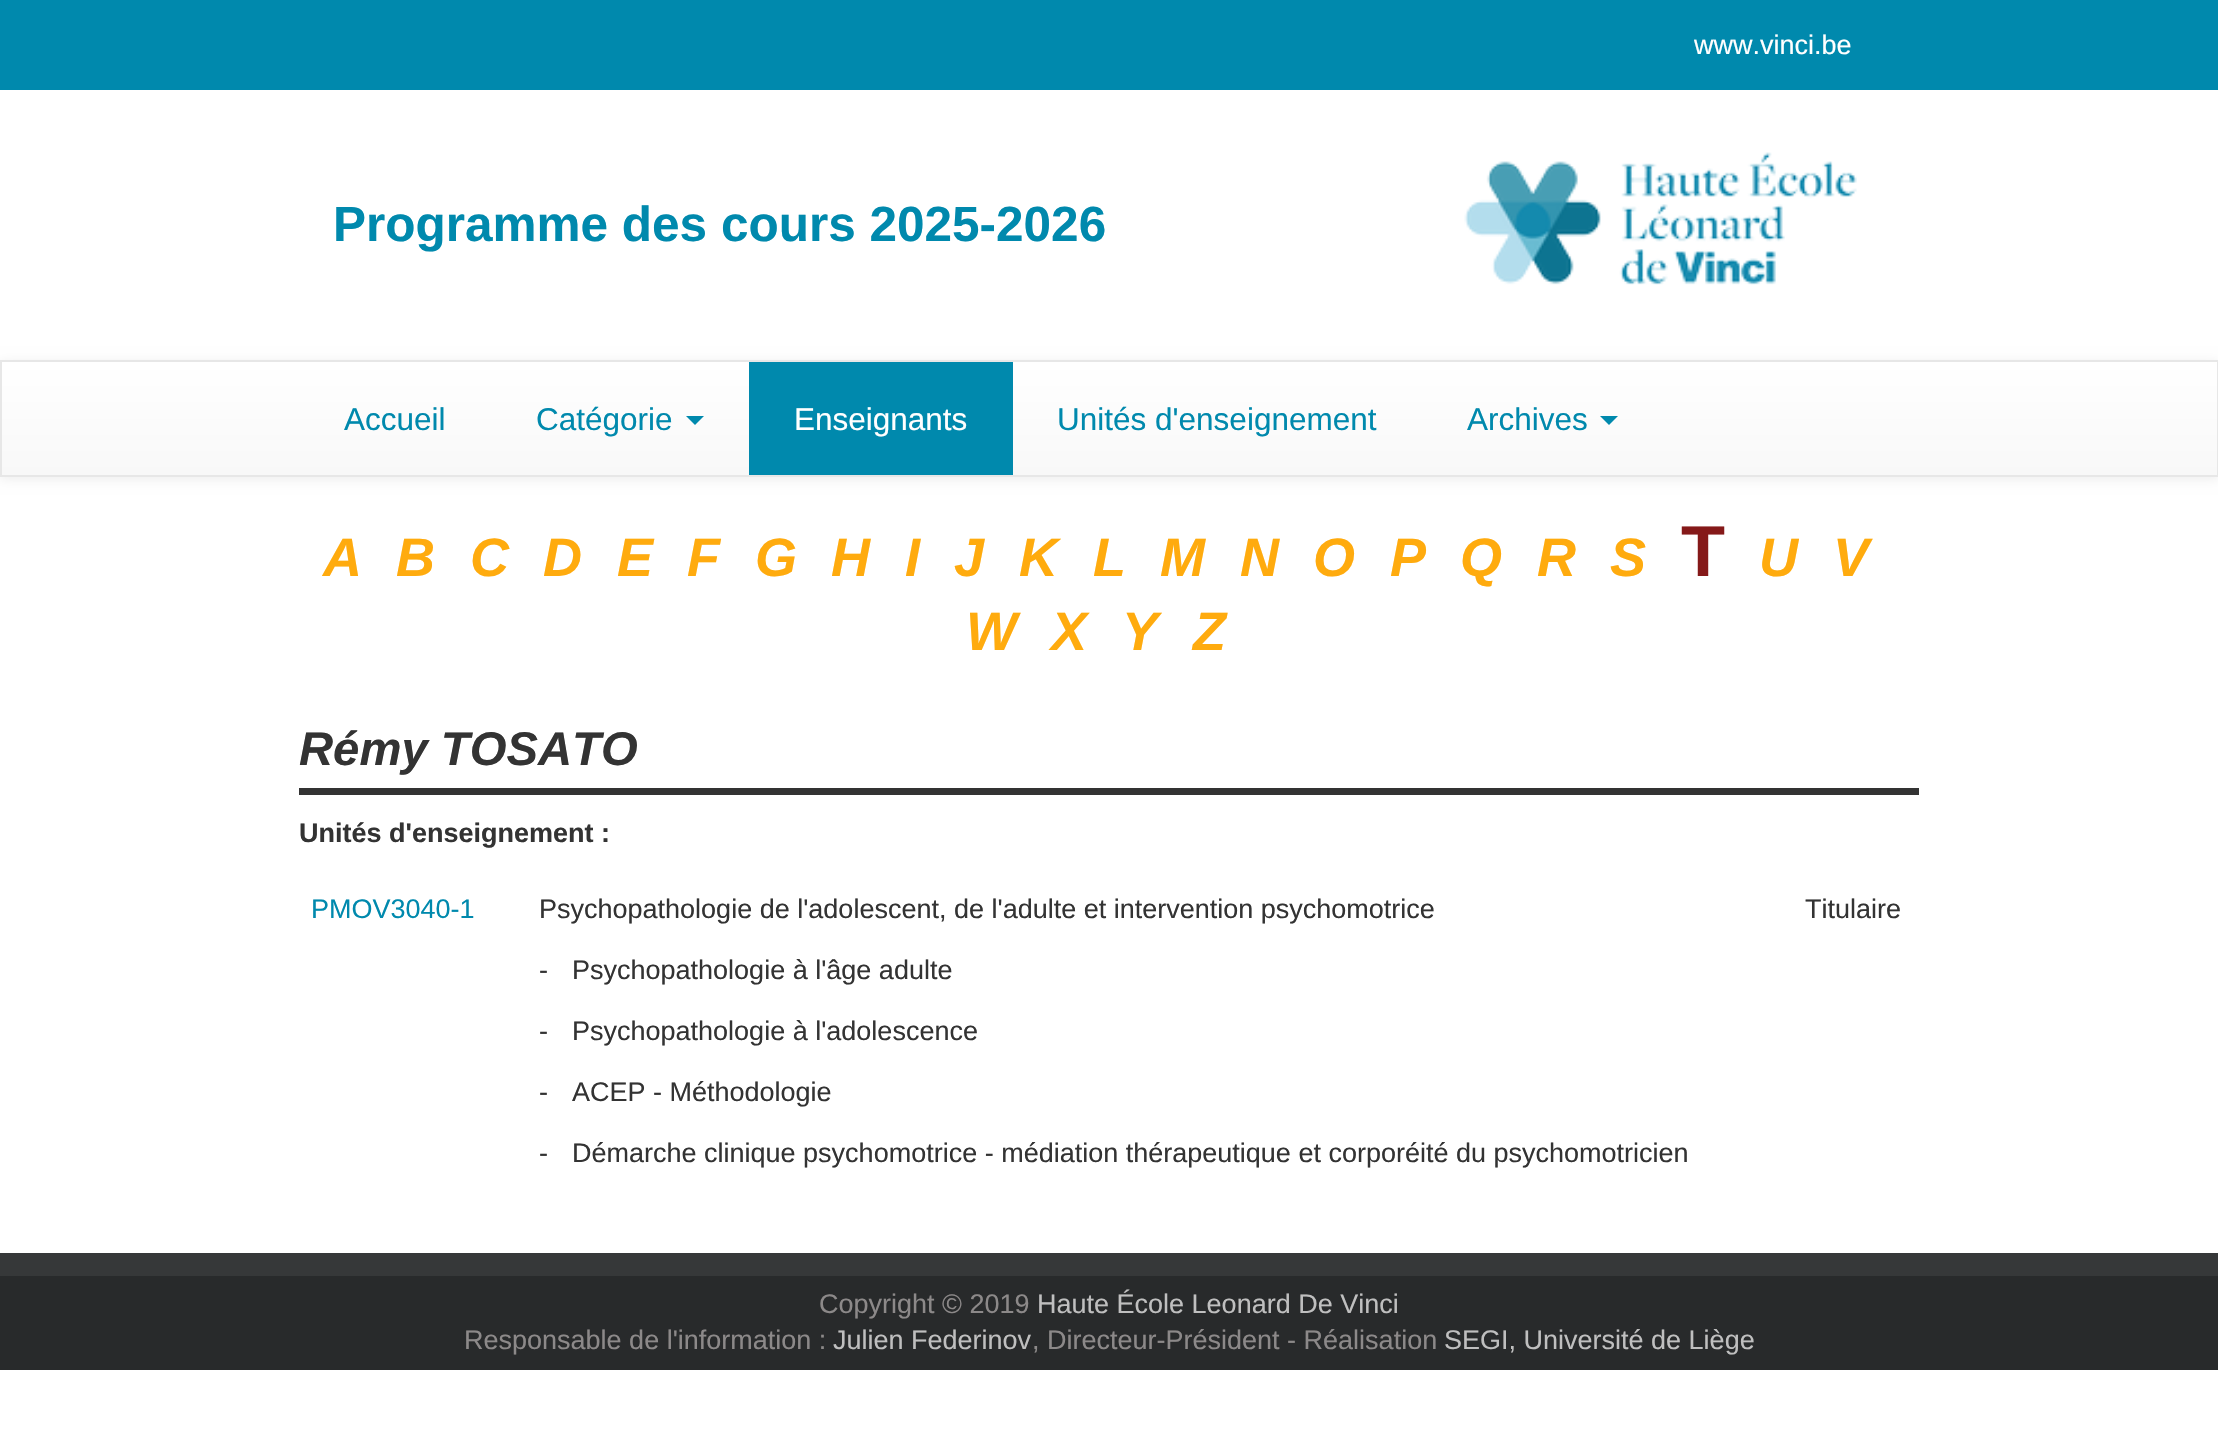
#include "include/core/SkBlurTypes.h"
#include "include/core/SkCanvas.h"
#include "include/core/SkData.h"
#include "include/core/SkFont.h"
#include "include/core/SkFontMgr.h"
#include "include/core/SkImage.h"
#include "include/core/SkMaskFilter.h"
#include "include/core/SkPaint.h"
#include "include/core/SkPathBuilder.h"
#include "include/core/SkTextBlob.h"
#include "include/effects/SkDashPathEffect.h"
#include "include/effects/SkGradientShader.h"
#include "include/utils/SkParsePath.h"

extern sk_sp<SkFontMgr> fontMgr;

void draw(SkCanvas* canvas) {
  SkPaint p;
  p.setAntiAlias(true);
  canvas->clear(SK_ColorWHITE);
  p.setColor(SkColorSetRGB(0, 137, 173));
  canvas->drawRect(SkRect::MakeLTRB(0, 0, 2218, 90), p);
  canvas->drawImageRect(SkImages::DeferredFromEncodedData(SkData::MakeFromFileName("images/1.png")), SkRect::MakeLTRB(1464, 152, 1857, 285), SkSamplingOptions());
  p.setColor(SkColorSetARGB(18, 0, 0, 0));
  p.setMaskFilter(SkMaskFilter::MakeBlur(kNormal_SkBlurStyle, 5.5f));
  canvas->drawRect(SkRect::MakeLTRB(0, 362, 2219, 479), p);
  p.setMaskFilter(nullptr);
  {
    const SkColor colors[] = {SK_ColorWHITE, SkColorSetRGB(248, 248, 248)};
    const float stops[] = {0, 1};
    const SkPoint ends[] = {{1109, 362}, {1109, 475}};
    p.setShader(SkGradientShader::MakeLinear(ends, colors, stops, 2, SkTileMode::kClamp));
    p.setAlpha(255);
  }
  canvas->drawRect(SkRect::MakeLTRB(2, 362, 2217, 475), p);
  p.setStyle(SkPaint::kStroke_Style);
  p.setStrokeWidth(2);
  p.setShader(nullptr);
  p.setColor(SkColorSetRGB(231, 231, 231));
  canvas->drawRect(SkRect::MakeLTRB(1, 361, 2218, 476), p);
  p.setStyle(SkPaint::kFill_Style);
  p.setColor(SkColorSetRGB(0, 137, 173));
  canvas->drawPath(SkPathBuilder().moveTo(686, 416).lineTo(704, 416).lineTo(695, 425).close().detach(), p);
  canvas->drawRect(SkRect::MakeLTRB(749, 362, 1013, 475), p);
  canvas->drawPath(SkPathBuilder().moveTo(1600, 416).lineTo(1618, 416).lineTo(1609, 425).close().detach(), p);
  p.setColor(SkColorSetRGB(51, 51, 51));
  canvas->drawRect(SkRect::MakeLTRB(299, 788, 1919, 795), p);
  p.setColor(SkColorSetRGB(40, 42, 43));
  canvas->drawRect(SkRect::MakeLTRB(0, 1276, 2218, 1370), p);
  p.setColor(SkColorSetRGB(54, 56, 57));
  canvas->drawRect(SkRect::MakeLTRB(0, 1253, 2218, 1276), p);
  SkFont font1(fontMgr->matchFamilyStyle("Liberation Sans", SkFontStyle::Normal()), 27);
  font1.setSubpixel(true);
  p.setColor(SK_ColorWHITE);
  canvas->drawString("www.vinci.be", 1694, 54, font1, p);
  SkFont font2(fontMgr->matchFamilyStyle("Liberation Sans", SkFontStyle::Bold()), 49.5f);
  font2.setSubpixel(true);
  p.setColor(SkColorSetRGB(0, 137, 173));
  canvas->drawString("Programme des cours 2025-2026", 333, 241, font2, p);
  SkFont font3(fontMgr->matchFamilyStyle("Liberation Sans", SkFontStyle::Normal()), 31.5f);
  font3.setSubpixel(true);
  canvas->drawString("Accueil", 344, 430, font3, p);
  canvas->drawString("Catégorie", 536, 430, font3, p);
  p.setColor(SK_ColorWHITE);
  canvas->drawString("Enseignants", 794, 430, font3, p);
  p.setColor(SkColorSetRGB(0, 137, 173));
  canvas->drawString("Unités d'enseignement", 1057, 430, font3, p);
  canvas->drawString("Archives", 1467, 430, font3, p);
  SkFont font4(fontMgr->matchFamilyStyle("Liberation Sans", SkFontStyle::BoldItalic()), 54);
  font4.setSubpixel(true);
  p.setColor(SkColorSetRGB(255, 171, 14));
  canvas->drawString("A", 323, 576, font4, p);
  canvas->drawString("B", 396, 576, font4, p);
  canvas->drawString("C", 470, 576, font4, p);
  canvas->drawString("D", 543, 576, font4, p);
  canvas->drawString("E", 617, 576, font4, p);
  canvas->drawString("F", 687, 576, font4, p);
  canvas->drawString("G", 755, 576, font4, p);
  canvas->drawString("H", 831, 576, font4, p);
  canvas->drawString("I", 905, 576, font4, p);
  canvas->drawString("J", 954, 576, font4, p);
  canvas->drawString("K", 1019, 576, font4, p);
  canvas->drawString("L", 1093, 576, font4, p);
  canvas->drawString("M", 1160, 576, font4, p);
  canvas->drawString("N", 1240, 576, font4, p);
  canvas->drawString("O", 1313, 576, font4, p);
  canvas->drawString("P", 1390, 576, font4, p);
  canvas->drawString("Q", 1460, 576, font4, p);
  canvas->drawString("R", 1537, 576, font4, p);
  canvas->drawString("S", 1610, 576, font4, p);
  SkFont font5(fontMgr->matchFamilyStyle("Liberation Sans", SkFontStyle::Bold()), 72);
  font5.setSubpixel(true);
  p.setColor(SkColorSetRGB(133, 25, 25));
  canvas->drawString("T", 1681, 576, font5, p);
  p.setColor(SkColorSetRGB(255, 171, 14));
  canvas->drawString("U", 1759, 576, font4, p);
  canvas->drawString("V", 1833, 576, font4, p);
  canvas->drawString("W", 966, 650, font4, p);
  canvas->drawString("X", 1051, 650, font4, p);
  canvas->drawString("Y", 1122, 650, font4, p);
  canvas->drawString("Z", 1193, 650, font4, p);
  SkFont font6(fontMgr->matchFamilyStyle("Liberation Sans", SkFontStyle::BoldItalic()), 47.25f);
  font6.setSubpixel(true);
  p.setColor(SkColorSetRGB(51, 51, 51));
  canvas->drawString("Rémy TOSATO", 299, 765, font6, p);
  SkFont font7(fontMgr->matchFamilyStyle("Liberation Sans", SkFontStyle::Bold()), 27);
  font7.setSubpixel(true);
  canvas->drawString("Unités d'enseignement :", 299, 842, font7, p);
  p.setColor(SkColorSetRGB(0, 137, 173));
  canvas->drawString("PMOV3040-1", 311, 918, font1, p);
  p.setColor(SkColorSetRGB(51, 51, 51));
  canvas->drawString("Psychopathologie de l'adolescent, de l'adulte et intervention psychomotrice", 539, 918, font1, p);
  canvas->drawString("Titulaire", 1805, 918, font1, p);
  canvas->drawString("-", 539, 979, font1, p);
  canvas->drawString("Psychopathologie à l'âge adulte", 572, 979, font1, p);
  canvas->drawString("-", 539, 1040, font1, p);
  canvas->drawString("Psychopathologie à l'adolescence", 572, 1040, font1, p);
  canvas->drawString("-", 539, 1101, font1, p);
  canvas->drawString("ACEP - Méthodologie", 572, 1101, font1, p);
  canvas->drawString("-", 539, 1162, font1, p);
  canvas->drawString("Démarche clinique psychomotrice - médiation thérapeutique et corporéité du psychomotricien", 572, 1162, font1, p);
  p.setColor(SkColorSetRGB(140, 137, 137));
  canvas->drawString("Copyright © 2019", 819, 1313, font1, p);
  p.setColor(SkColorSetRGB(191, 191, 191));
  canvas->drawString("Haute École Leonard De Vinci", 1037, 1313, font1, p);
  p.setColor(SkColorSetRGB(140, 137, 137));
  canvas->drawString("Responsable de l'information :", 464, 1349, font1, p);
  p.setColor(SkColorSetRGB(191, 191, 191));
  canvas->drawString("Julien Federinov", 833, 1349, font1, p);
  p.setColor(SkColorSetRGB(140, 137, 137));
  canvas->drawString(", Directeur-Président - Réalisation", 1032, 1349, font1, p);
  p.setColor(SkColorSetRGB(191, 191, 191));
  canvas->drawString("SEGI, Université de Liège", 1444, 1349, font1, p);
}
